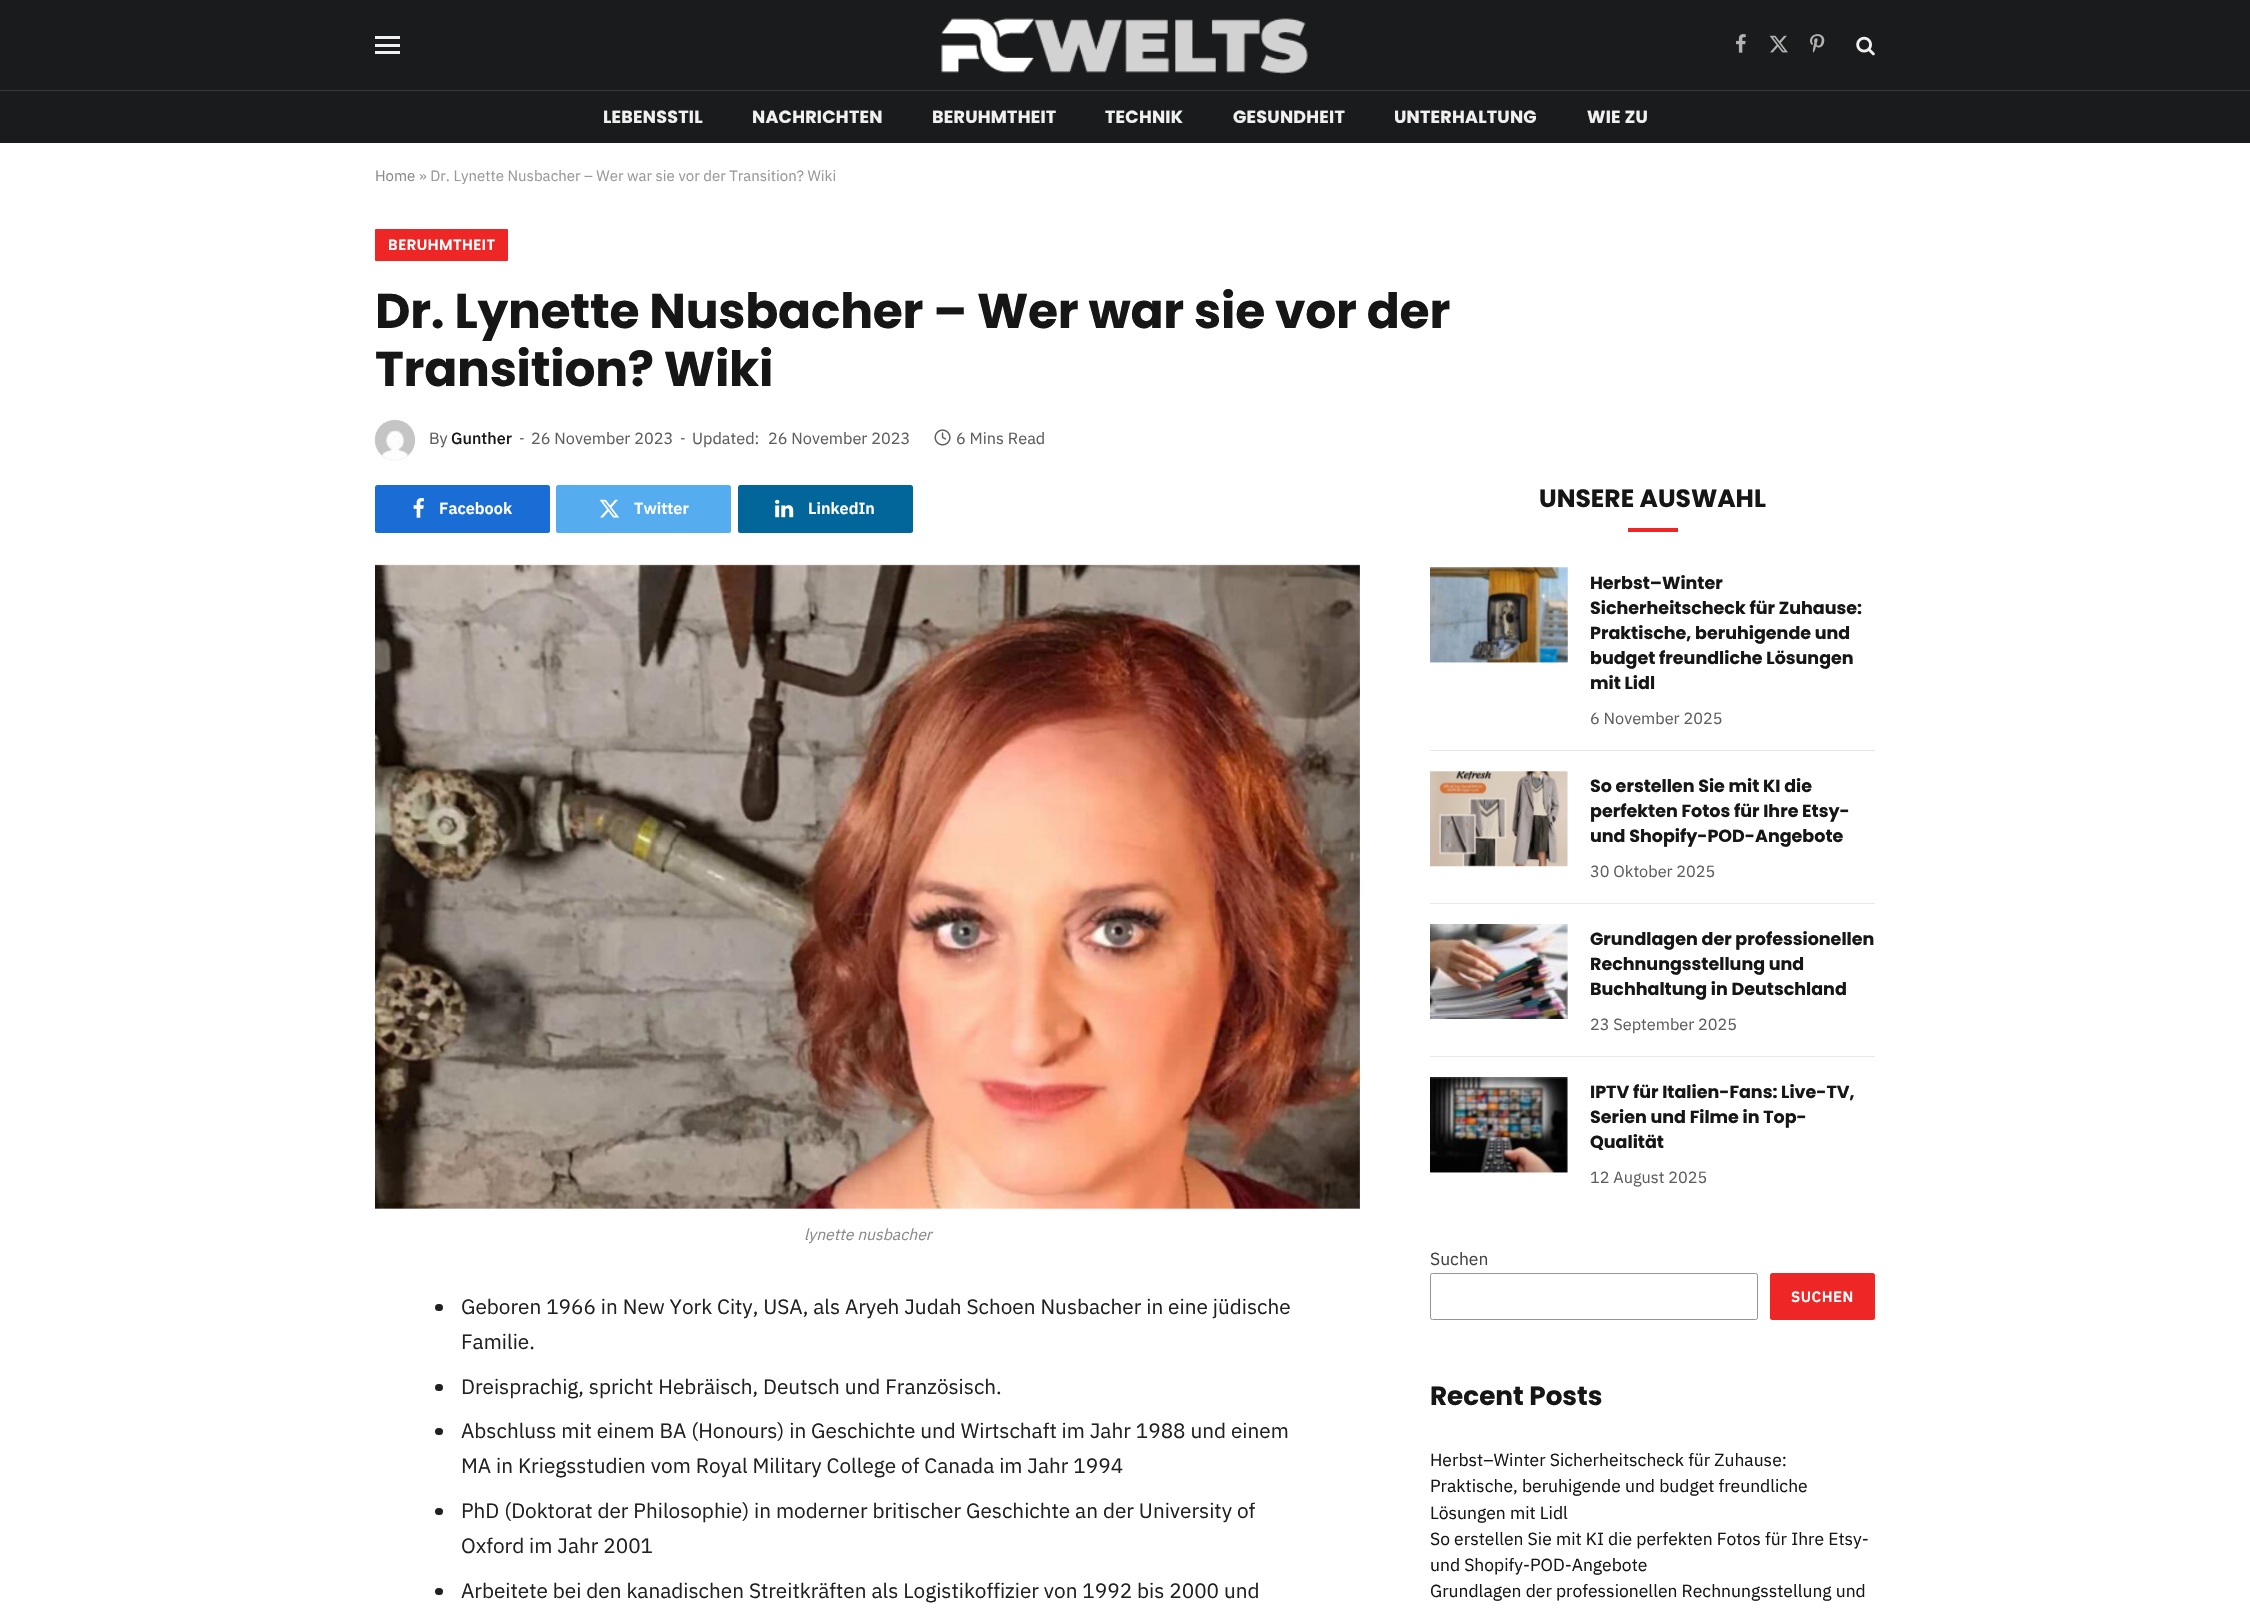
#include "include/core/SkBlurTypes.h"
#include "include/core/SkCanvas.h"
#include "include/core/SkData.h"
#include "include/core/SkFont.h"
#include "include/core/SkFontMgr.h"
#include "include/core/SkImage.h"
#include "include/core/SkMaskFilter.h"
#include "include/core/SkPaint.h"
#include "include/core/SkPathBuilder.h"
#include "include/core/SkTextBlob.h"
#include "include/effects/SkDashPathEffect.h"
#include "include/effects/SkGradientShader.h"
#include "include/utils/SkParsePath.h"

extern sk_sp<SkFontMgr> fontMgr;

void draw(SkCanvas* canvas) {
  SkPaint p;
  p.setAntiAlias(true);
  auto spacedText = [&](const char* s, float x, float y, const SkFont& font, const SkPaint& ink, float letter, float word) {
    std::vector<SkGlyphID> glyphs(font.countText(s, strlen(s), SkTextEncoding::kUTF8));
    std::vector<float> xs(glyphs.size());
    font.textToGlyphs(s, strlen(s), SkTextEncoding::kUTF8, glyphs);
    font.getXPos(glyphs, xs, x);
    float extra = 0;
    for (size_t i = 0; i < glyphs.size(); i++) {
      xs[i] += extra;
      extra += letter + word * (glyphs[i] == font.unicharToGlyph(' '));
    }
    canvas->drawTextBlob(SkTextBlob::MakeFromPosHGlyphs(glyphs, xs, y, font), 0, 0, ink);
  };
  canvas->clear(SK_ColorWHITE);
  p.setColor(SkColorSetRGB(26, 27, 29));
  canvas->drawRect(SkRect::MakeLTRB(0, 0, 2250, 90), p);
  p.setColor(SkColorSetRGB(240, 240, 240));
  canvas->drawRect(SkRect::MakeLTRB(375, 51, 400, 54), p);
  canvas->drawRect(SkRect::MakeLTRB(375, 36, 400, 39), p);
  canvas->drawRect(SkRect::MakeLTRB(375, 44, 400, 47), p);
  canvas->drawImageRect(SkImages::DeferredFromEncodedData(SkData::MakeFromFileName("images/1.png")), SkRect::MakeLTRB(941, 18, 1308, 74), SkSamplingOptions());
  canvas->drawImageRect(SkImages::DeferredFromEncodedData(SkData::MakeFromFileName("images/2.png")), SkRect::MakeLTRB(1736, 34, 1746, 53), SkSamplingOptions());
  canvas->drawImageRect(SkImages::DeferredFromEncodedData(SkData::MakeFromFileName("images/3.png")), SkRect::MakeLTRB(1769, 35, 1788, 53), SkSamplingOptions());
  canvas->drawImageRect(SkImages::DeferredFromEncodedData(SkData::MakeFromFileName("images/4.png")), SkRect::MakeLTRB(1810, 34, 1825, 53), SkSamplingOptions());
  canvas->drawImageRect(SkImages::DeferredFromEncodedData(SkData::MakeFromFileName("images/5.png")), SkRect::MakeLTRB(1856, 36, 1875, 56), SkSamplingOptions());
  p.setColor(SkColorSetRGB(26, 27, 29));
  canvas->drawRect(SkRect::MakeLTRB(0, 91, 2250, 143), p);
  p.setColor(SkColorSetRGB(56, 56, 56));
  canvas->drawRect(SkRect::MakeLTRB(0, 90, 2250, 91), p);
  p.setColor(SkColorSetRGB(239, 38, 38));
  canvas->drawRoundRect(SkRect::MakeLTRB(375, 229, 508, 261), 1, 1, p);
  p.setColor(SkColorSetARGB(51, 0, 0, 0));
  p.setMaskFilter(SkMaskFilter::MakeBlur(kNormal_SkBlurStyle, 0.5f));
  canvas->drawRoundRect(SkRect::MakeLTRB(375, 420, 415, 460), 20, 20, p);
  p.setMaskFilter(nullptr);
  canvas->drawImageRect(SkImages::DeferredFromEncodedData(SkData::MakeFromFileName("images/6.png")), SkRect::MakeLTRB(375, 420, 415, 460), SkSamplingOptions());
  canvas->drawImageRect(SkImages::DeferredFromEncodedData(SkData::MakeFromFileName("images/7.png")), SkRect::MakeLTRB(934, 429, 951, 446), SkSamplingOptions());
  p.setColor(SkColorSetRGB(26, 109, 212));
  canvas->drawRoundRect(SkRect::MakeLTRB(375, 485, 550, 533), 2.5f, 2.5f, p);
  canvas->drawImageRect(SkImages::DeferredFromEncodedData(SkData::MakeFromFileName("images/8.png")), SkRect::MakeLTRB(413, 498, 424, 518), SkSamplingOptions());
  p.setColor(SkColorSetRGB(85, 172, 239));
  canvas->drawRoundRect(SkRect::MakeLTRB(556, 485, 731, 533), 2.5f, 2.5f, p);
  canvas->drawImageRect(SkImages::DeferredFromEncodedData(SkData::MakeFromFileName("images/9.png")), SkRect::MakeLTRB(599, 499, 620, 518), SkSamplingOptions());
  p.setColor(SkColorSetRGB(2, 102, 154));
  canvas->drawRoundRect(SkRect::MakeLTRB(738, 485, 913, 533), 2.5f, 2.5f, p);
  canvas->drawImageRect(SkImages::DeferredFromEncodedData(SkData::MakeFromFileName("images/10.png")), SkRect::MakeLTRB(775, 499, 794, 518), SkSamplingOptions());
  canvas->drawImageRect(SkImages::DeferredFromEncodedData(SkData::MakeFromFileName("images/11.png")), SkRect::MakeLTRB(375, 564, 1360, 1209), SkSamplingOptions());
  p.setColor(SkColorSetRGB(33, 33, 33));
  canvas->drawRoundRect(SkRect::MakeLTRB(435, 1304, 443, 1311), 3.5f, 3.5f, p);
  canvas->drawRoundRect(SkRect::MakeLTRB(435, 1384, 443, 1391), 3.5f, 3.5f, p);
  canvas->drawRoundRect(SkRect::MakeLTRB(435, 1428, 443, 1435), 3.5f, 3.5f, p);
  canvas->drawRoundRect(SkRect::MakeLTRB(435, 1508, 443, 1515), 3.5f, 3.5f, p);
  canvas->drawRoundRect(SkRect::MakeLTRB(435, 1588, 443, 1595), 3.5f, 3.5f, p);
  p.setColor(SkColorSetRGB(239, 38, 38));
  canvas->drawRect(SkRect::MakeLTRB(1628, 528, 1678, 532), p);
  canvas->drawImageRect(SkImages::DeferredFromEncodedData(SkData::MakeFromFileName("images/12.png")), SkRect::MakeLTRB(1430, 567, 1568, 663), SkSamplingOptions());
  p.setColor(SkColorSetRGB(232, 232, 232));
  canvas->drawRect(SkRect::MakeLTRB(1430, 750, 1875, 751), p);
  canvas->drawImageRect(SkImages::DeferredFromEncodedData(SkData::MakeFromFileName("images/13.png")), SkRect::MakeLTRB(1430, 771, 1568, 867), SkSamplingOptions());
  canvas->drawRect(SkRect::MakeLTRB(1430, 903, 1875, 904), p);
  canvas->drawImageRect(SkImages::DeferredFromEncodedData(SkData::MakeFromFileName("images/14.png")), SkRect::MakeLTRB(1430, 924, 1568, 1019), SkSamplingOptions());
  canvas->drawRect(SkRect::MakeLTRB(1430, 1056, 1875, 1057), p);
  canvas->drawImageRect(SkImages::DeferredFromEncodedData(SkData::MakeFromFileName("images/15.png")), SkRect::MakeLTRB(1430, 1077, 1568, 1173), SkSamplingOptions());
  p.setStyle(SkPaint::kStroke_Style);
  p.setStrokeWidth(1);
  p.setColor(SkColorSetRGB(148, 148, 148));
  canvas->drawRoundRect(SkRect::MakeLTRB(1430.5f, 1273.5f, 1757.5f, 1319.5f), 2, 2, p);
  p.setStyle(SkPaint::kFill_Style);
  p.setColor(SkColorSetRGB(239, 38, 38));
  canvas->drawRoundRect(SkRect::MakeLTRB(1770, 1273, 1875, 1320), 2.5f, 2.5f, p);
  SkFont font1(fontMgr->matchFamilyStyle("Poppins", SkFontStyle::Bold()), 17.5f);
  font1.setSubpixel(true);
  p.setColor(SkColorSetRGB(240, 240, 240));
  spacedText("LEBENSSTIL", 603, 123, font1, p, 0.25f, 0);
  spacedText("NACHRICHTEN", 752, 123, font1, p, 0.25f, 0);
  spacedText("BERUHMTHEIT", 932, 123, font1, p, 0.25f, 0);
  spacedText("TECHNIK", 1105, 123, font1, p, 0.25f, 0);
  spacedText("GESUNDHEIT", 1233, 123, font1, p, 0.25f, 0);
  spacedText("UNTERHALTUNG", 1394, 123, font1, p, 0.25f, 0);
  spacedText("WIE ZU", 1587, 123, font1, p, 0.25f, 0);
  SkFont font2(fontMgr->matchFamilyStyle("IBM Plex Sans", SkFontStyle::Normal()), 15);
  font2.setSubpixel(true);
  p.setColor(SkColorSetRGB(138, 138, 138));
  canvas->drawString("Home", 375, 181, font2, p);
  p.setColor(SkColorSetRGB(153, 153, 153));
  canvas->drawString("» Dr. Lynette Nusbacher – Wer war sie vor der Transition? Wiki", 419, 181, font2, p);
  SkFont font3(fontMgr->matchFamilyStyle("Poppins", SkFontStyle(600, SkFontStyle::kNormal_Width, SkFontStyle::kUpright_Slant)), 15);
  font3.setSubpixel(true);
  p.setColor(SK_ColorWHITE);
  spacedText("BERUHMTHEIT", 388, 250, font3, p, 0.5f, 0);
  SkFont font4(fontMgr->matchFamilyStyle("Poppins", SkFontStyle::Bold()), 48.75f);
  font4.setSubpixel(true);
  p.setColor(SkColorSetRGB(22, 22, 22));
  spacedText("Dr. Lynette Nusbacher – Wer war sie vor der", 375, 328, font4, p, -0.25f, 0);
  spacedText("Transition? Wiki", 375, 386, font4, p, -0.25f, 0);
  SkFont font5(fontMgr->matchFamilyStyle("IBM Plex Sans", SkFontStyle::Normal()), 16.25f);
  font5.setSubpixel(true);
  p.setColor(SkColorSetRGB(94, 94, 94));
  canvas->drawString("By", 429, 444, font5, p);
  SkFont font6(fontMgr->matchFamilyStyle("IBM Plex Sans", SkFontStyle(500, SkFontStyle::kNormal_Width, SkFontStyle::kUpright_Slant)), 16.25f);
  font6.setSubpixel(true);
  p.setColor(SkColorSetRGB(22, 22, 22));
  canvas->drawString("Gunther", 451, 444, font6, p);
  SkFont font7(fontMgr->matchFamilyStyle("IBM Plex Sans", SkFontStyle::Normal()), 14);
  font7.setSubpixel(true);
  p.setColor(SkColorSetRGB(94, 94, 94));
  canvas->drawString("-", 519, 443, font7, p);
  canvas->drawString("26 November 2023", 531, 444, font5, p);
  canvas->drawString("-", 680, 443, font7, p);
  canvas->drawString("Updated:", 692, 444, font5, p);
  canvas->drawString("26 November 2023", 768, 444, font5, p);
  canvas->drawString("6 Mins Read", 956, 444, font5, p);
  SkFont font8(fontMgr->matchFamilyStyle("IBM Plex Sans", SkFontStyle(600, SkFontStyle::kNormal_Width, SkFontStyle::kUpright_Slant)), 16.25f);
  font8.setSubpixel(true);
  p.setColor(SK_ColorWHITE);
  canvas->drawString("Facebook", 439, 514, font8, p);
  canvas->drawString("Twitter", 634, 514, font8, p);
  canvas->drawString("LinkedIn", 808, 514, font8, p);
  SkFont font9(fontMgr->matchFamilyStyle("IBM Plex Sans", SkFontStyle::Italic()), 15.75f);
  font9.setSubpixel(true);
  p.setColor(SkColorSetRGB(138, 138, 138));
  canvas->drawString("lynette nusbacher", 804, 1240, font9, p);
  SkFont font10(fontMgr->matchFamilyStyle("IBM Plex Sans", SkFontStyle::Normal()), 20.75f);
  font10.setSubpixel(true);
  p.setColor(SkColorSetRGB(33, 33, 33));
  canvas->drawString("Geboren 1966 in New York City, USA, als Aryeh Judah Schoen Nusbacher in eine jüdische", 461, 1314, font10, p);
  canvas->drawString("Familie.", 461, 1349, font10, p);
  canvas->drawString("Dreisprachig, spricht Hebräisch, Deutsch und Französisch.", 461, 1394, font10, p);
  canvas->drawString("Abschluss mit einem BA (Honours) in Geschichte und Wirtschaft im Jahr 1988 und einem", 461, 1438, font10, p);
  canvas->drawString("MA in Kriegsstudien vom Royal Military College of Canada im Jahr 1994", 461, 1473, font10, p);
  canvas->drawString("PhD (Doktorat der Philosophie) in moderner britischer Geschichte an der University of", 461, 1518, font10, p);
  canvas->drawString("Oxford im Jahr 2001", 461, 1553, font10, p);
  canvas->drawString("Arbeitete bei den kanadischen Streitkräften als Logistikoffizier von 1992 bis 2000 und", 461, 1598, font10, p);
  SkFont font11(fontMgr->matchFamilyStyle("Poppins", SkFontStyle::Bold()), 25);
  font11.setSubpixel(true);
  p.setColor(SkColorSetRGB(22, 22, 22));
  canvas->drawString("UNSERE AUSWAHL", 1539, 507, font11, p);
  canvas->drawString("Herbst–Winter", 1590, 589, font1, p);
  canvas->drawString("Sicherheitscheck für Zuhause:", 1590, 614, font1, p);
  canvas->drawString("Praktische, beruhigende und", 1590, 639, font1, p);
  canvas->drawString("budget freundliche Lösungen", 1590, 664, font1, p);
  canvas->drawString("mit Lidl", 1590, 689, font1, p);
  p.setColor(SkColorSetRGB(94, 94, 94));
  canvas->drawString("6 November 2025", 1590, 724, font5, p);
  p.setColor(SkColorSetRGB(22, 22, 22));
  canvas->drawString("So erstellen Sie mit KI die", 1590, 792, font1, p);
  canvas->drawString("perfekten Fotos für Ihre Etsy-", 1590, 817, font1, p);
  canvas->drawString("und Shopify-POD-Angebote", 1590, 842, font1, p);
  p.setColor(SkColorSetRGB(94, 94, 94));
  canvas->drawString("30 Oktober 2025", 1590, 877, font5, p);
  p.setColor(SkColorSetRGB(22, 22, 22));
  canvas->drawString("Grundlagen der professionellen", 1590, 945, font1, p);
  canvas->drawString("Rechnungsstellung und", 1590, 970, font1, p);
  canvas->drawString("Buchhaltung in Deutschland", 1590, 995, font1, p);
  p.setColor(SkColorSetRGB(94, 94, 94));
  canvas->drawString("23 September 2025", 1590, 1030, font5, p);
  p.setColor(SkColorSetRGB(22, 22, 22));
  canvas->drawString("IPTV für Italien-Fans: Live-TV,", 1590, 1098, font1, p);
  canvas->drawString("Serien und Filme in Top-", 1590, 1123, font1, p);
  canvas->drawString("Qualität", 1590, 1148, font1, p);
  p.setColor(SkColorSetRGB(94, 94, 94));
  canvas->drawString("12 August 2025", 1590, 1183, font5, p);
  SkFont font12(fontMgr->matchFamilyStyle("IBM Plex Sans", SkFontStyle::Normal()), 17.5f);
  font12.setSubpixel(true);
  p.setColor(SkColorSetRGB(68, 68, 68));
  canvas->drawString("Suchen", 1430, 1265, font12, p);
  SkFont font13(fontMgr->matchFamilyStyle("IBM Plex Sans", SkFontStyle(600, SkFontStyle::kNormal_Width, SkFontStyle::kUpright_Slant)), 15);
  font13.setSubpixel(true);
  p.setColor(SK_ColorWHITE);
  spacedText("SUCHEN", 1791, 1302, font13, p, 0.5f, 0);
  SkFont font14(fontMgr->matchFamilyStyle("Poppins", SkFontStyle::Bold()), 26.25f);
  font14.setSubpixel(true);
  p.setColor(SkColorSetRGB(22, 22, 22));
  canvas->drawString("Recent Posts", 1430, 1405, font14, p);
  canvas->drawString("Herbst–Winter Sicherheitscheck für Zuhause:", 1430, 1466, font12, p);
  canvas->drawString("Praktische, beruhigende und budget freundliche", 1430, 1492, font12, p);
  canvas->drawString("Lösungen mit Lidl", 1430, 1519, font12, p);
  canvas->drawString("So erstellen Sie mit KI die perfekten Fotos für Ihre Etsy-", 1430, 1545, font12, p);
  canvas->drawString("und Shopify-POD-Angebote", 1430, 1571, font12, p);
  canvas->drawString("Grundlagen der professionellen Rechnungsstellung und", 1430, 1597, font12, p);
}
